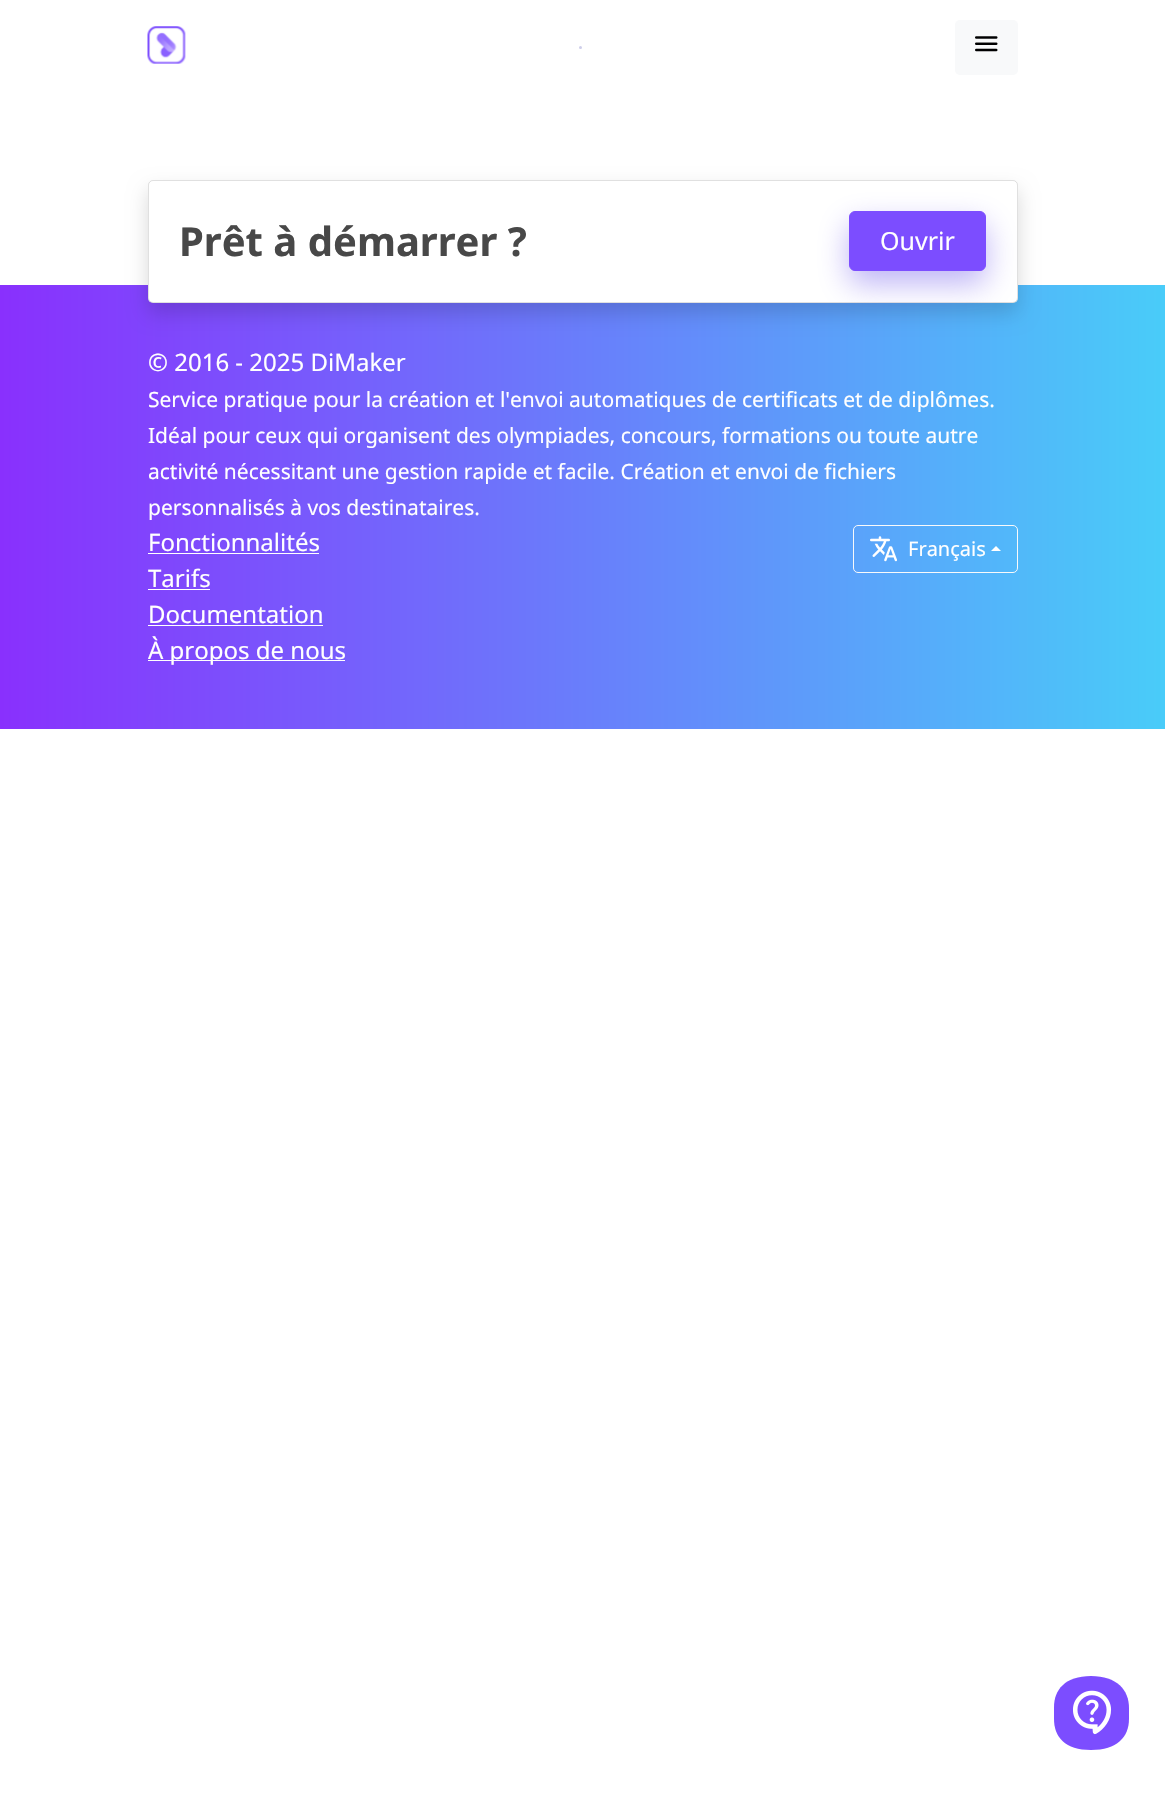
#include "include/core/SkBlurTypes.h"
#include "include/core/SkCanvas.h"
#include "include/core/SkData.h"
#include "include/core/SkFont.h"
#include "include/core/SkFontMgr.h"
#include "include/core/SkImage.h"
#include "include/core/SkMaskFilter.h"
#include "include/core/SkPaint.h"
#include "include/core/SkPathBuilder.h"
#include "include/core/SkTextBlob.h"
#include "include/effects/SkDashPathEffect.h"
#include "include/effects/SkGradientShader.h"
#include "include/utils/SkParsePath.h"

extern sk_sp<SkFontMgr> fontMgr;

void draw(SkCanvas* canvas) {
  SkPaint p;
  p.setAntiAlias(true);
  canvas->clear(SK_ColorWHITE);
  canvas->drawImageRect(SkImages::DeferredFromEncodedData(SkData::MakeFromFileName("images/1.png")), SkRect::MakeLTRB(147, 26, 186, 64), SkSamplingOptions());
  p.setColor(SkColorSetRGB(206, 206, 234));
  canvas->drawCircle(580.5f, 47.5f, 1.5f, p);
  p.setColor(SkColorSetRGB(248, 249, 250));
  canvas->drawRoundRect(SkRect::MakeLTRB(955, 20, 1018, 75), 5, 5, p);
  canvas->drawImageRect(SkImages::DeferredFromEncodedData(SkData::MakeFromFileName("images/2.png")), SkRect::MakeLTRB(975, 36, 998, 52), SkSamplingOptions());
  {
    const SkColor colors[] = {SkColorSetRGB(137, 48, 253), SkColorSetRGB(73, 204, 249)};
    const float stops[] = {0, 1};
    const SkPoint ends[] = {{0, 507}, {1165, 507}};
    p.setShader(SkGradientShader::MakeLinear(ends, colors, stops, 2, SkTileMode::kClamp));
    p.setAlpha(255);
  }
  canvas->drawRect(SkRect::MakeLTRB(0, 285, 1165, 729), p);
  p.setShader(nullptr);
  p.setColor(SkColorSetARGB(38, 0, 0, 0));
  p.setMaskFilter(SkMaskFilter::MakeBlur(kNormal_SkBlurStyle, 10));
  canvas->drawRoundRect(SkRect::MakeLTRB(148, 190, 1018, 313), 5, 5, p);
  p.setMaskFilter(nullptr);
  p.setColor(SK_ColorWHITE);
  canvas->drawRoundRect(SkRect::MakeLTRB(148, 180, 1018, 303), 5, 5, p);
  p.setStyle(SkPaint::kStroke_Style);
  p.setStrokeWidth(1);
  p.setColor(SkColorSetARGB(31, 0, 0, 0));
  canvas->drawRoundRect(SkRect::MakeLTRB(148.5f, 180.5f, 1017.5f, 302.5f), 4.5f, 4.5f, p);
  p.setStyle(SkPaint::kFill_Style);
  p.setColor(SkColorSetARGB(128, 123, 104, 238));
  p.setMaskFilter(SkMaskFilter::MakeBlur(kNormal_SkBlurStyle, 15.5f));
  canvas->drawRoundRect(SkRect::MakeLTRB(849, 224, 986, 284), 6, 6, p);
  p.setMaskFilter(nullptr);
  p.setColor(SkColorSetRGB(124, 77, 255));
  canvas->drawRoundRect(SkRect::MakeLTRB(849.5f, 211.5f, 985.5f, 270.5f), 5.5f, 5.5f, p);
  p.setStyle(SkPaint::kStroke_Style);
  canvas->drawRoundRect(SkRect::MakeLTRB(849.5f, 211.5f, 985.5f, 270.5f), 5.5f, 5.5f, p);
  p.setStyle(SkPaint::kFill_Style);
  p.setColor(SK_ColorWHITE);
  canvas->drawRect(SkRect::MakeLTRB(148, 553, 319, 554), p);
  canvas->drawRect(SkRect::MakeLTRB(148, 589, 210, 590), p);
  canvas->drawRect(SkRect::MakeLTRB(148, 625, 323, 626), p);
  canvas->drawRect(SkRect::MakeLTRB(148, 660, 345, 661), p);
  p.setStyle(SkPaint::kStroke_Style);
  p.setColor(SkColorSetRGB(248, 249, 250));
  canvas->drawRoundRect(SkRect::MakeLTRB(853.5f, 525.5f, 1017.5f, 572.5f), 4.5f, 4.5f, p);
  canvas->drawImageRect(SkImages::DeferredFromEncodedData(SkData::MakeFromFileName("images/3.png")), SkRect::MakeLTRB(870, 536, 897, 562), SkSamplingOptions());
  p.setStyle(SkPaint::kFill_Style);
  p.setColor(SK_ColorWHITE);
  canvas->drawPath(SkPathBuilder().moveTo(1001, 551).lineTo(991, 551).lineTo(996, 546).close().detach(), p);
  p.setColor(SkColorSetRGB(124, 77, 255));
  canvas->drawPath(SkPathBuilder().moveTo(1091, 1750).cubicTo(1065, 1750, 1054, 1737, 1054, 1719).lineTo(1054, 1707).cubicTo(1054, 1690, 1065, 1676, 1091, 1676).cubicTo(1117, 1676, 1129, 1690, 1129, 1708).lineTo(1129, 1719).cubicTo(1129, 1737, 1117, 1750, 1091, 1750).close().detach(), p);
  canvas->drawImageRect(SkImages::DeferredFromEncodedData(SkData::MakeFromFileName("images/4.png")), SkRect::MakeLTRB(1073, 1690, 1112, 1735), SkSamplingOptions());
  SkFont font1(fontMgr->matchFamilyStyle("Noto Sans", SkFontStyle::Bold()), 40);
  font1.setSubpixel(true);
  p.setColor(SkColorSetRGB(72, 72, 72));
  canvas->drawString("Prêt à démarrer ?", 179, 256, font1, p);
  SkFont font2(fontMgr->matchFamilyStyle("Noto Sans", SkFontStyle::Normal()), 25);
  font2.setSubpixel(true);
  p.setColor(SK_ColorWHITE);
  canvas->drawString("Ouvrir", 880, 250, font2, p);
  SkFont font3(fontMgr->matchFamilyStyle("Noto Sans", SkFontStyle::Normal()), 24);
  font3.setSubpixel(true);
  canvas->drawString("© 2016 - 2025 DiMaker", 148, 371, font3, p);
  SkFont font4(fontMgr->matchFamilyStyle("Noto Sans", SkFontStyle::Normal()), 21);
  font4.setSubpixel(true);
  canvas->drawString("Service pratique pour la création et l'envoi automatiques de certificats et de diplômes.", 148, 407, font4, p);
  canvas->drawString("Idéal pour ceux qui organisent des olympiades, concours, formations ou toute autre", 148, 443, font4, p);
  canvas->drawString("activité nécessitant une gestion rapide et facile. Création et envoi de fichiers", 148, 479, font4, p);
  canvas->drawString("personnalisés à vos destinataires.", 148, 515, font4, p);
  canvas->drawString("Fonctionnalités", 148, 551, font3, p);
  canvas->drawString("Tarifs", 148, 587, font3, p);
  canvas->drawString("Documentation", 148, 623, font3, p);
  canvas->drawString("À propos de nous", 148, 659, font3, p);
  SkFont font5(fontMgr->matchFamilyStyle("Noto Sans", SkFontStyle::Normal()), 20);
  font5.setSubpixel(true);
  canvas->drawString("Français", 908, 556, font5, p);
}
